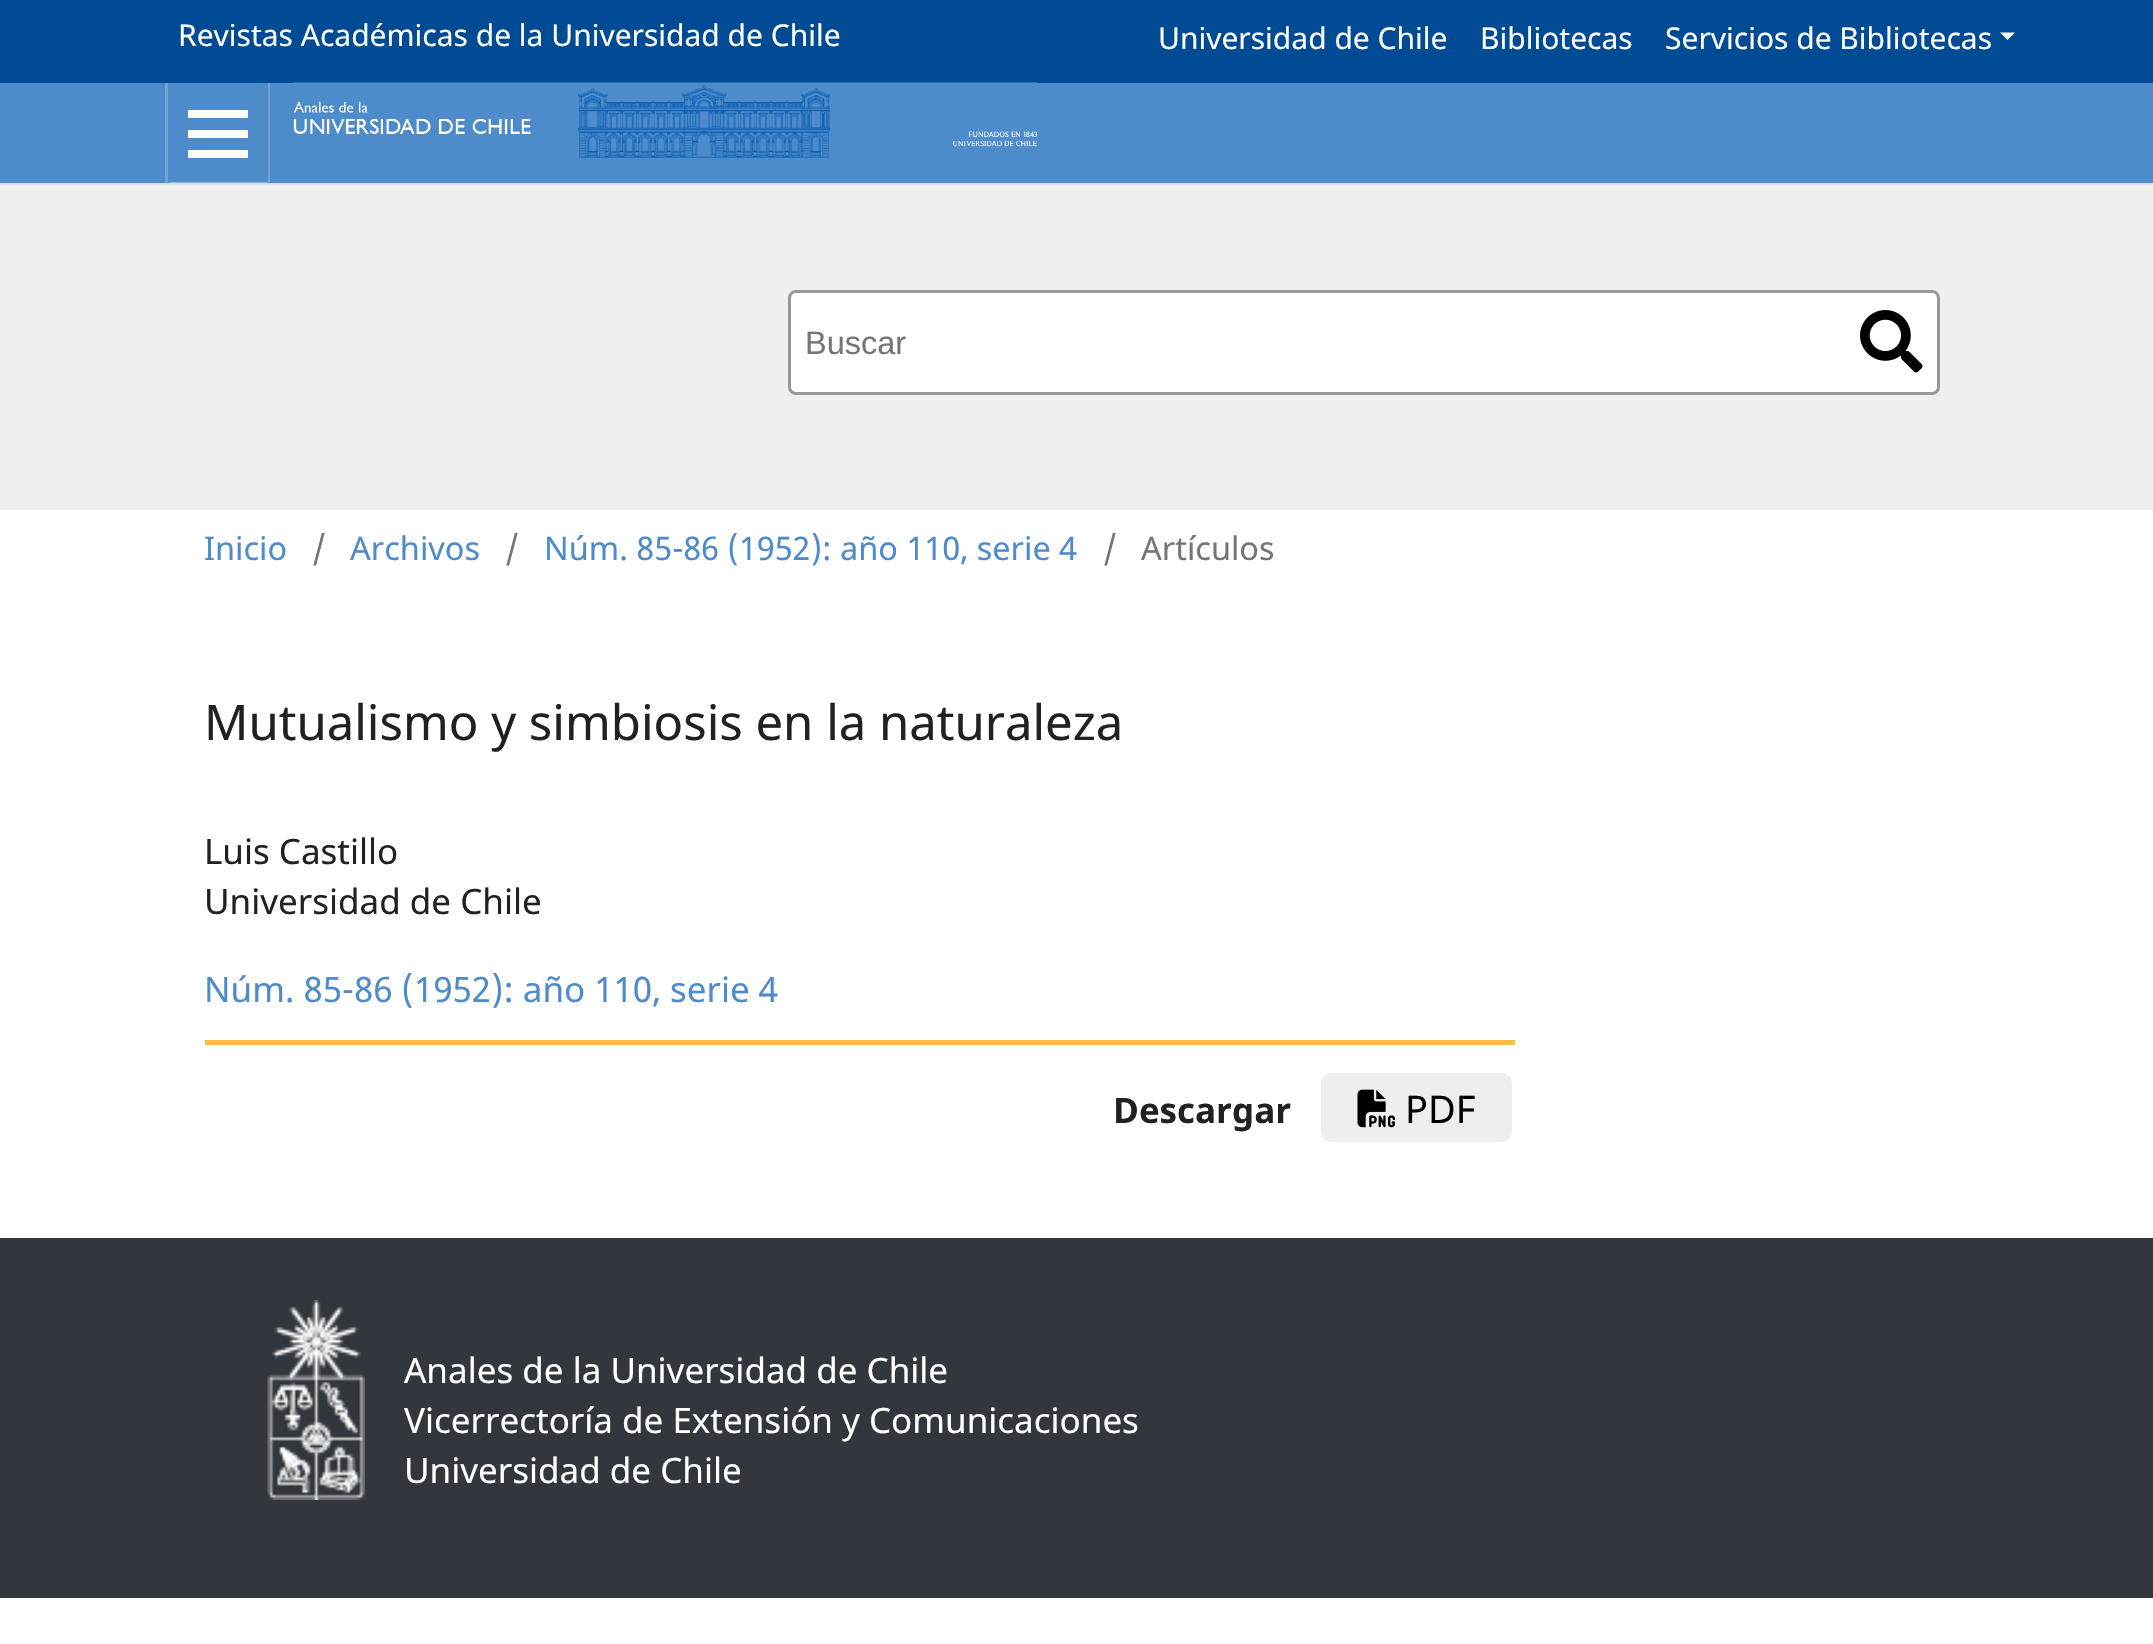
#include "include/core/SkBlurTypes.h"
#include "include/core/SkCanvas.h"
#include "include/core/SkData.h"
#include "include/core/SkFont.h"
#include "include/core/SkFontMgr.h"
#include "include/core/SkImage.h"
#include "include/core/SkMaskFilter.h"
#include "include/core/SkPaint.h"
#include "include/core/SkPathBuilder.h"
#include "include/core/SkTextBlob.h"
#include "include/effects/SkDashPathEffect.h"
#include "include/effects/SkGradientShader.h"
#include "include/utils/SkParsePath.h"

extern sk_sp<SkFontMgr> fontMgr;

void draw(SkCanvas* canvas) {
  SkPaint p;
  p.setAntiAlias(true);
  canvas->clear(SK_ColorWHITE);
  p.setColor(SkColorSetRGB(78, 139, 203));
  canvas->drawRect(SkRect::MakeLTRB(0, 83, 2153, 183), p);
  p.setColor(SkColorSetRGB(221, 221, 221));
  canvas->drawRect(SkRect::MakeLTRB(0, 183, 2153, 185), p);
  p.setColor(SkColorSetRGB(0, 75, 147));
  canvas->drawRect(SkRect::MakeLTRB(0, 0, 2153, 83), p);
  p.setColor(SK_ColorWHITE);
  canvas->drawPath(SkPathBuilder().moveTo(2000, 32.5f).lineTo(2015, 32.5f).lineTo(2007.5f, 40).close().detach(), p);
  p.setColor(SkColorSetRGB(113, 162, 213));
  canvas->drawPath(SkPathBuilder().moveTo(165, 83).lineTo(165, 183).lineTo(265, 183).lineTo(265, 182).lineTo(168, 182).lineTo(168, 83).close().detach(), p);
  p.setColor(SkColorSetARGB(51, 255, 255, 255));
  canvas->drawPath(SkPathBuilder().moveTo(170, 182).lineTo(170, 183).lineTo(270, 183).lineTo(270, 83).lineTo(268, 83).lineTo(268, 182).close().detach(), p);
  p.setColor(SK_ColorWHITE);
  canvas->drawRect(SkRect::MakeLTRB(188, 150, 248, 158), p);
  canvas->drawRect(SkRect::MakeLTRB(188, 110, 248, 118), p);
  canvas->drawRect(SkRect::MakeLTRB(188, 130, 248, 138), p);
  canvas->drawImageRect(SkImages::DeferredFromEncodedData(SkData::MakeFromFileName("images/1.png")), SkRect::MakeLTRB(292, 82, 1038, 158), SkSamplingOptions());
  p.setColor(SkColorSetRGB(240, 240, 240));
  canvas->drawRect(SkRect::MakeLTRB(0, 185, 2153, 510), p);
  p.setColor(SK_ColorWHITE);
  canvas->drawRoundRect(SkRect::MakeLTRB(788, 290, 1940, 395), 8, 8, p);
  p.setStyle(SkPaint::kStroke_Style);
  p.setStrokeWidth(3);
  p.setColor(SkColorSetARGB(102, 0, 0, 0));
  canvas->drawRoundRect(SkRect::MakeLTRB(789.5f, 291.5f, 1938.5f, 393.5f), 6.5f, 6.5f, p);
  canvas->drawImageRect(SkImages::DeferredFromEncodedData(SkData::MakeFromFileName("images/2.png")), SkRect::MakeLTRB(1860, 310, 1923, 373), SkSamplingOptions());
  p.setStyle(SkPaint::kFill_Style);
  p.setColor(SkColorSetRGB(247, 188, 74));
  canvas->drawRect(SkRect::MakeLTRB(205, 1040, 1515, 1045), p);
  p.setColor(SkColorSetRGB(238, 238, 238));
  canvas->drawRoundRect(SkRect::MakeLTRB(1319.5f, 1071.5f, 1513.5f, 1143.5f), 11.5f, 11.5f, p);
  p.setStyle(SkPaint::kStroke_Style);
  p.setColor(SK_ColorWHITE);
  canvas->drawRoundRect(SkRect::MakeLTRB(1319.5f, 1071.5f, 1513.5f, 1143.5f), 11.5f, 11.5f, p);
  canvas->drawImageRect(SkImages::DeferredFromEncodedData(SkData::MakeFromFileName("images/3.png")), SkRect::MakeLTRB(1357, 1089, 1395, 1128), SkSamplingOptions());
  p.setStyle(SkPaint::kFill_Style);
  p.setColor(SkColorSetRGB(50, 55, 61));
  canvas->drawRect(SkRect::MakeLTRB(0, 1238, 2153, 1598), p);
  canvas->drawImageRect(SkImages::DeferredFromEncodedData(SkData::MakeFromFileName("images/4.png")), SkRect::MakeLTRB(267, 1300, 365, 1500), SkSamplingOptions());
  SkFont font1(fontMgr->matchFamilyStyle("Noto Sans", SkFontStyle::Normal()), 30);
  font1.setSubpixel(true);
  p.setColor(SK_ColorWHITE);
  canvas->drawString("Revistas Académicas de la Universidad de Chile", 178, 46, font1, p);
  canvas->drawString("Universidad de Chile", 1158, 49, font1, p);
  canvas->drawString("Bibliotecas", 1480, 49, font1, p);
  canvas->drawString("Servicios de Bibliotecas", 1665, 49, font1, p);
  SkFont font2(fontMgr->matchFamilyStyle("Liberation Sans", SkFontStyle::Normal()), 32.5f);
  font2.setSubpixel(true);
  p.setColor(SkColorSetRGB(117, 117, 117));
  canvas->drawString("Buscar", 805, 354, font2, p);
  SkFont font3(fontMgr->matchFamilyStyle("Noto Sans", SkFontStyle::Normal()), 32.5f);
  font3.setSubpixel(true);
  p.setColor(SkColorSetRGB(77, 139, 203));
  canvas->drawString("Inicio", 204, 560, font3, p);
  p.setColor(SkColorSetRGB(117, 117, 117));
  canvas->drawString("/", 312, 560, font3, p);
  p.setColor(SkColorSetRGB(77, 139, 203));
  canvas->drawString("Archivos", 350, 560, font3, p);
  p.setColor(SkColorSetRGB(117, 117, 117));
  canvas->drawString("/", 505, 560, font3, p);
  p.setColor(SkColorSetRGB(77, 139, 203));
  canvas->drawString("Núm. 85-86 (1952): año 110, serie 4", 544, 560, font3, p);
  p.setColor(SkColorSetRGB(117, 117, 117));
  canvas->drawString("/", 1103, 560, font3, p);
  canvas->drawString("Artículos", 1141, 560, font3, p);
  SkFont font4(fontMgr->matchFamilyStyle("Noto Sans", SkFontStyle::Normal()), 49);
  font4.setSubpixel(true);
  p.setColor(SkColorSetRGB(33, 33, 33));
  canvas->drawString("Mutualismo y simbiosis en la naturaleza", 204, 740, font4, p);
  SkFont font5(fontMgr->matchFamilyStyle("Noto Sans", SkFontStyle::Normal()), 35);
  font5.setSubpixel(true);
  canvas->drawString("Luis Castillo", 204, 864, font5, p);
  canvas->drawString("Universidad de Chile", 204, 914, font5, p);
  p.setColor(SkColorSetRGB(77, 139, 203));
  canvas->drawString("Núm. 85-86 (1952): año 110, serie 4", 204, 1002, font5, p);
  SkFont font6(fontMgr->matchFamilyStyle("Noto Sans", SkFontStyle::Bold()), 35);
  font6.setSubpixel(true);
  p.setColor(SkColorSetRGB(33, 33, 33));
  canvas->drawString("Descargar", 1113, 1123, font6, p);
  SkFont font7(fontMgr->matchFamilyStyle("Noto Sans", SkFontStyle::Normal()), 38);
  font7.setSubpixel(true);
  p.setColor(SK_ColorBLACK);
  canvas->drawString("PDF", 1405, 1123, font7, p);
  p.setColor(SK_ColorWHITE);
  canvas->drawString("Anales de la Universidad de Chile", 404, 1383, font5, p);
  canvas->drawString("Vicerrectoría de Extensión y Comunicaciones", 404, 1433, font5, p);
  canvas->drawString("Universidad de Chile", 404, 1483, font5, p);
}
